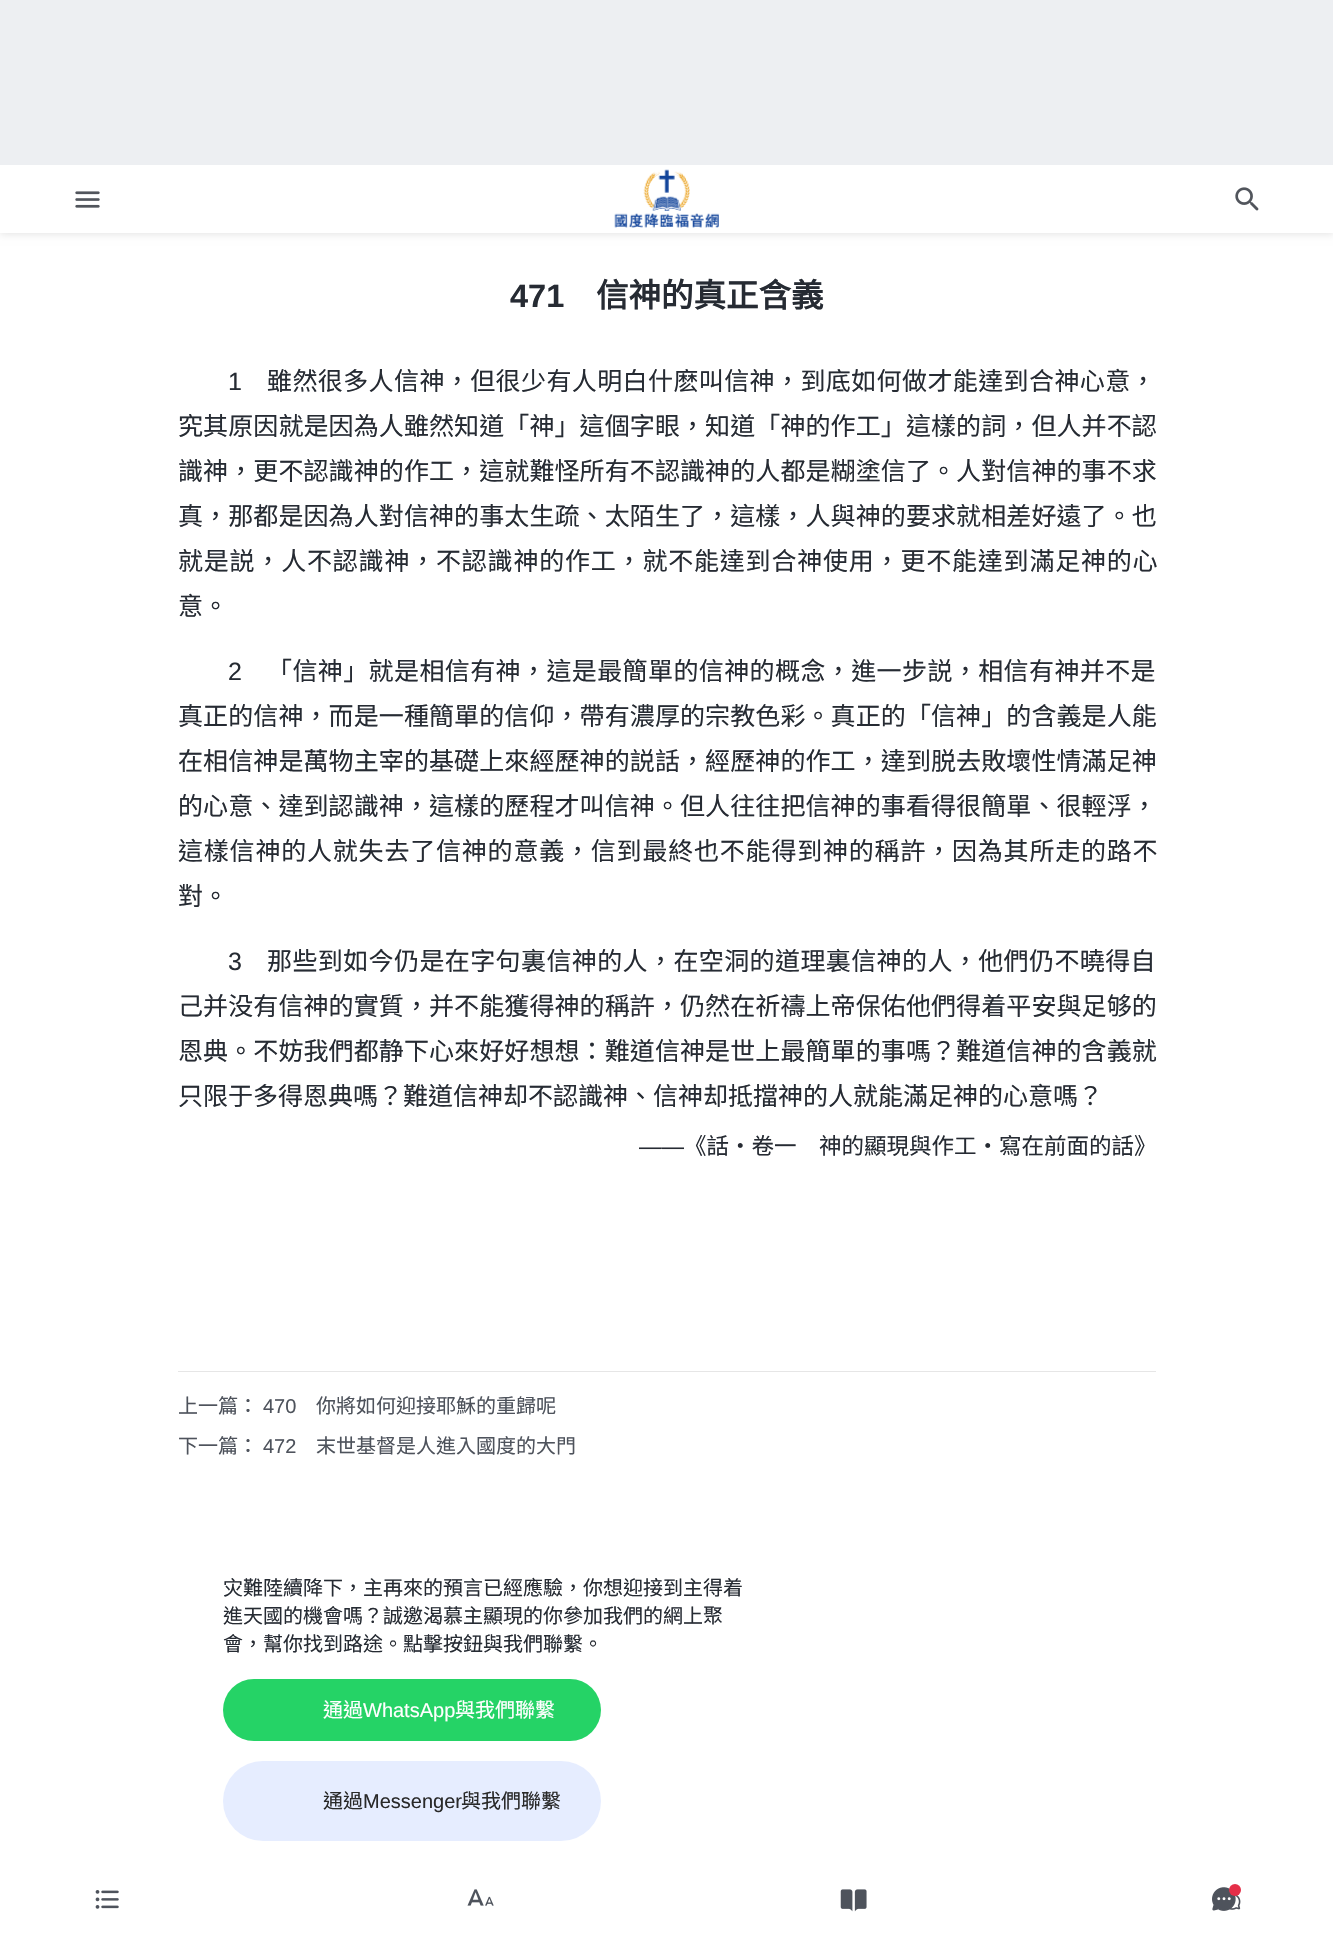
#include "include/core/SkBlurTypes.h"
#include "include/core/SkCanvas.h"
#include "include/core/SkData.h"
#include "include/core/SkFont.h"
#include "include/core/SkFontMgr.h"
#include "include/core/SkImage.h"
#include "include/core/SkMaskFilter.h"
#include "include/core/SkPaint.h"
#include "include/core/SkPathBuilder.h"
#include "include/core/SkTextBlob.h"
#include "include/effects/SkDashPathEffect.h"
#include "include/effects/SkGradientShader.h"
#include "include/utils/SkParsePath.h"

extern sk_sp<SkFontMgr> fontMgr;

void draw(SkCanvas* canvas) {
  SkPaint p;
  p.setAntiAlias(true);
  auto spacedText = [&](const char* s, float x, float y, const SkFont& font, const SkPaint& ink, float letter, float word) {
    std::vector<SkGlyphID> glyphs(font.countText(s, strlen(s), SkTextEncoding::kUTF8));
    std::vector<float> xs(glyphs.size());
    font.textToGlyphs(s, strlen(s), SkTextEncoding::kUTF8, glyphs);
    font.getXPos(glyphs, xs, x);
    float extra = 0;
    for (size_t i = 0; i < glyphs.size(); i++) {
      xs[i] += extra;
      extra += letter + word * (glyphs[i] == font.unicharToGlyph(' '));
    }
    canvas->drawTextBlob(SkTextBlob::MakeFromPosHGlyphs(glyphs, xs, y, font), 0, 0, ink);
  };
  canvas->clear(SK_ColorWHITE);
  p.setColor(SkColorSetARGB(28, 0, 0, 0));
  p.setMaskFilter(SkMaskFilter::MakeBlur(kNormal_SkBlurStyle, 4));
  canvas->drawRect(SkRect::MakeLTRB(0, 166, 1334, 234), p);
  p.setMaskFilter(nullptr);
  p.setColor(SkColorSetRGB(237, 239, 242));
  canvas->drawRect(SkRect::MakeLTRB(0, 0, 1333, 165), p);
  p.setColor(SK_ColorWHITE);
  canvas->drawRect(SkRect::MakeLTRB(0, 165, 1333, 233), p);
  canvas->drawImageRect(SkImages::DeferredFromEncodedData(SkData::MakeFromFileName("images/1.png")), SkRect::MakeLTRB(75, 191, 100, 208), SkSamplingOptions());
  canvas->drawImageRect(SkImages::DeferredFromEncodedData(SkData::MakeFromFileName("images/2.png")), SkRect::MakeLTRB(614, 169, 719, 228), SkSamplingOptions());
  canvas->drawImageRect(SkImages::DeferredFromEncodedData(SkData::MakeFromFileName("images/3.png")), SkRect::MakeLTRB(1235, 187, 1259, 211), SkSamplingOptions());
  p.setColor(SkColorSetRGB(230, 230, 230));
  canvas->drawRect(SkRect::MakeLTRB(178, 1371, 1156, 1372), p);
  p.setColor(SkColorSetRGB(37, 211, 102));
  canvas->drawRoundRect(SkRect::MakeLTRB(223, 1679, 601, 1741), 31, 31, p);
  p.setColor(SkColorSetRGB(230, 237, 255));
  canvas->drawRoundRect(SkRect::MakeLTRB(223, 1761, 601, 1841), 40, 40, p);
  canvas->drawImageRect(SkImages::DeferredFromEncodedData(SkData::MakeFromFileName("images/4.png")), SkRect::MakeLTRB(95, 1890, 119, 1909), SkSamplingOptions());
  canvas->drawImageRect(SkImages::DeferredFromEncodedData(SkData::MakeFromFileName("images/5.png")), SkRect::MakeLTRB(467, 1889, 494, 1906), SkSamplingOptions());
  canvas->drawImageRect(SkImages::DeferredFromEncodedData(SkData::MakeFromFileName("images/6.png")), SkRect::MakeLTRB(840, 1889, 867, 1912), SkSamplingOptions());
  canvas->drawImageRect(SkImages::DeferredFromEncodedData(SkData::MakeFromFileName("images/7.png")), SkRect::MakeLTRB(1212, 1887, 1241, 1911), SkSamplingOptions());
  p.setColor(SkColorSetRGB(229, 46, 72));
  canvas->drawCircle(1235, 1890, 6, p);
  SkFont font1(fontMgr->matchFamilyStyle("Liberation Sans", SkFontStyle::Bold()), 32.5f);
  font1.setSubpixel(true);
  p.setColor(SkColorSetRGB(38, 43, 51));
  canvas->drawString("471", 510, 307, font1, p);
  SkFont font2(fontMgr->matchFamilyStyle("Noto Sans CJK TC", SkFontStyle::Bold()), 32.5f);
  font2.setSubpixel(true);
  canvas->drawString("信神的真正含義", 596, 307, font2, p);
  SkFont font3(fontMgr->matchFamilyStyle("Liberation Sans", SkFontStyle::Normal()), 25);
  font3.setSubpixel(true);
  spacedText("1", 228, 390, font3, p, 0.4f, 0);
  SkFont font4(fontMgr->matchFamilyStyle("Noto Sans CJK TC", SkFontStyle::Normal()), 25);
  font4.setSubpixel(true);
  spacedText("雖然很多人信神，但很少有人明白什麽叫信神，到底如何做才能達到合神心意，", 267, 390, font4, p, 0.4f, 0);
  spacedText("究其原因就是因為人雖然知道「神」這個字眼，知道「神的作工」這樣的詞，但人并不認", 178, 435, font4, p, 0.1f, 0);
  spacedText("識神，更不認識神的作工，這就難怪所有不認識神的人都是糊塗信了。人對信神的事不求", 178, 480, font4, p, 0.1f, 0);
  spacedText("真，那都是因為人對信神的事太生疏、太陌生了，這樣，人與神的要求就相差好遠了。也", 178, 525, font4, p, 0.1f, 0);
  spacedText("就是説，人不認識神，不認識神的作工，就不能達到合神使用，更不能達到滿足神的心", 178, 570, font4, p, 0.8f, 0);
  canvas->drawString("意。", 178, 615, font4, p);
  spacedText("2", 228, 680, font3, p, 0.4f, 0);
  spacedText("「信神」就是相信有神，這是最簡單的信神的概念，進一步説，相信有神并不是", 267, 680, font4, p, 0.4f, 0);
  spacedText("真正的信神，而是一種簡單的信仰，帶有濃厚的宗教色彩。真正的「信神」的含義是人能", 178, 725, font4, p, 0.1f, 0);
  spacedText("在相信神是萬物主宰的基礎上來經歷神的説話，經歷神的作工，達到脱去敗壞性情滿足神", 178, 770, font4, p, 0.1f, 0);
  spacedText("的心意、達到認識神，這樣的歷程才叫信神。但人往往把信神的事看得很簡單、很輕浮，", 178, 815, font4, p, 0.1f, 0);
  spacedText("這樣信神的人就失去了信神的意義，信到最終也不能得到神的稱許，因為其所走的路不", 178, 860, font4, p, 0.8f, 0);
  canvas->drawString("對。", 178, 905, font4, p);
  spacedText("3", 228, 970, font3, p, 0.4f, 0);
  spacedText("那些到如今仍是在字句裏信神的人，在空洞的道理裏信神的人，他們仍不曉得自", 267, 970, font4, p, 0.4f, 0);
  spacedText("己并没有信神的實質，并不能獲得神的稱許，仍然在祈禱上帝保佑他們得着平安與足够的", 178, 1015, font4, p, 0.1f, 0);
  spacedText("恩典。不妨我們都静下心來好好想想：難道信神是世上最簡單的事嗎？難道信神的含義就", 178, 1060, font4, p, 0.1f, 0);
  canvas->drawString("只限于多得恩典嗎？難道信神却不認識神、信神却抵擋神的人就能滿足神的心意嗎？", 178, 1105, font4, p);
  SkFont font5(fontMgr->matchFamilyStyle("Liberation Sans", SkFontStyle::Normal()), 22.5f);
  font5.setSubpixel(true);
  canvas->drawString("——", 639, 1154, font5, p);
  SkFont font6(fontMgr->matchFamilyStyle("Noto Sans CJK TC", SkFontStyle::Normal()), 22.5f);
  font6.setSubpixel(true);
  canvas->drawString("《話・卷一　神的顯現與作工・寫在前面的話》", 684, 1154, font6, p);
  SkFont font7(fontMgr->matchFamilyStyle("Noto Sans CJK TC", SkFontStyle::Normal()), 20);
  font7.setSubpixel(true);
  p.setColor(SkColorSetRGB(78, 83, 92));
  canvas->drawString("上一篇：", 178, 1413, font7, p);
  SkFont font8(fontMgr->matchFamilyStyle("Liberation Sans", SkFontStyle::Normal()), 20);
  font8.setSubpixel(true);
  canvas->drawString("470", 263, 1413, font8, p);
  canvas->drawString("你將如何迎接耶穌的重歸呢", 316, 1413, font7, p);
  canvas->drawString("下一篇：", 178, 1453, font7, p);
  canvas->drawString("472", 263, 1453, font8, p);
  canvas->drawString("末世基督是人進入國度的大門", 316, 1453, font7, p);
  p.setColor(SkColorSetRGB(38, 43, 51));
  canvas->drawString("灾難陸續降下，主再來的預言已經應驗，你想迎接到主得着", 223, 1595, font7, p);
  canvas->drawString("進天國的機會嗎？誠邀渴慕主顯現的你參加我們的網上聚", 223, 1623, font7, p);
  canvas->drawString("會，幫你找到路途。點擊按鈕與我們聯繫。", 223, 1651, font7, p);
  p.setColor(SK_ColorWHITE);
  canvas->drawString("通過", 323, 1717, font7, p);
  canvas->drawString("WhatsApp", 363, 1717, font8, p);
  canvas->drawString("與我們聯繫", 455, 1717, font7, p);
  p.setColor(SkColorSetRGB(41, 41, 41));
  canvas->drawString("通過", 323, 1808, font7, p);
  canvas->drawString("Messenger", 363, 1808, font8, p);
  canvas->drawString("與我們聯繫", 461, 1808, font7, p);
}
